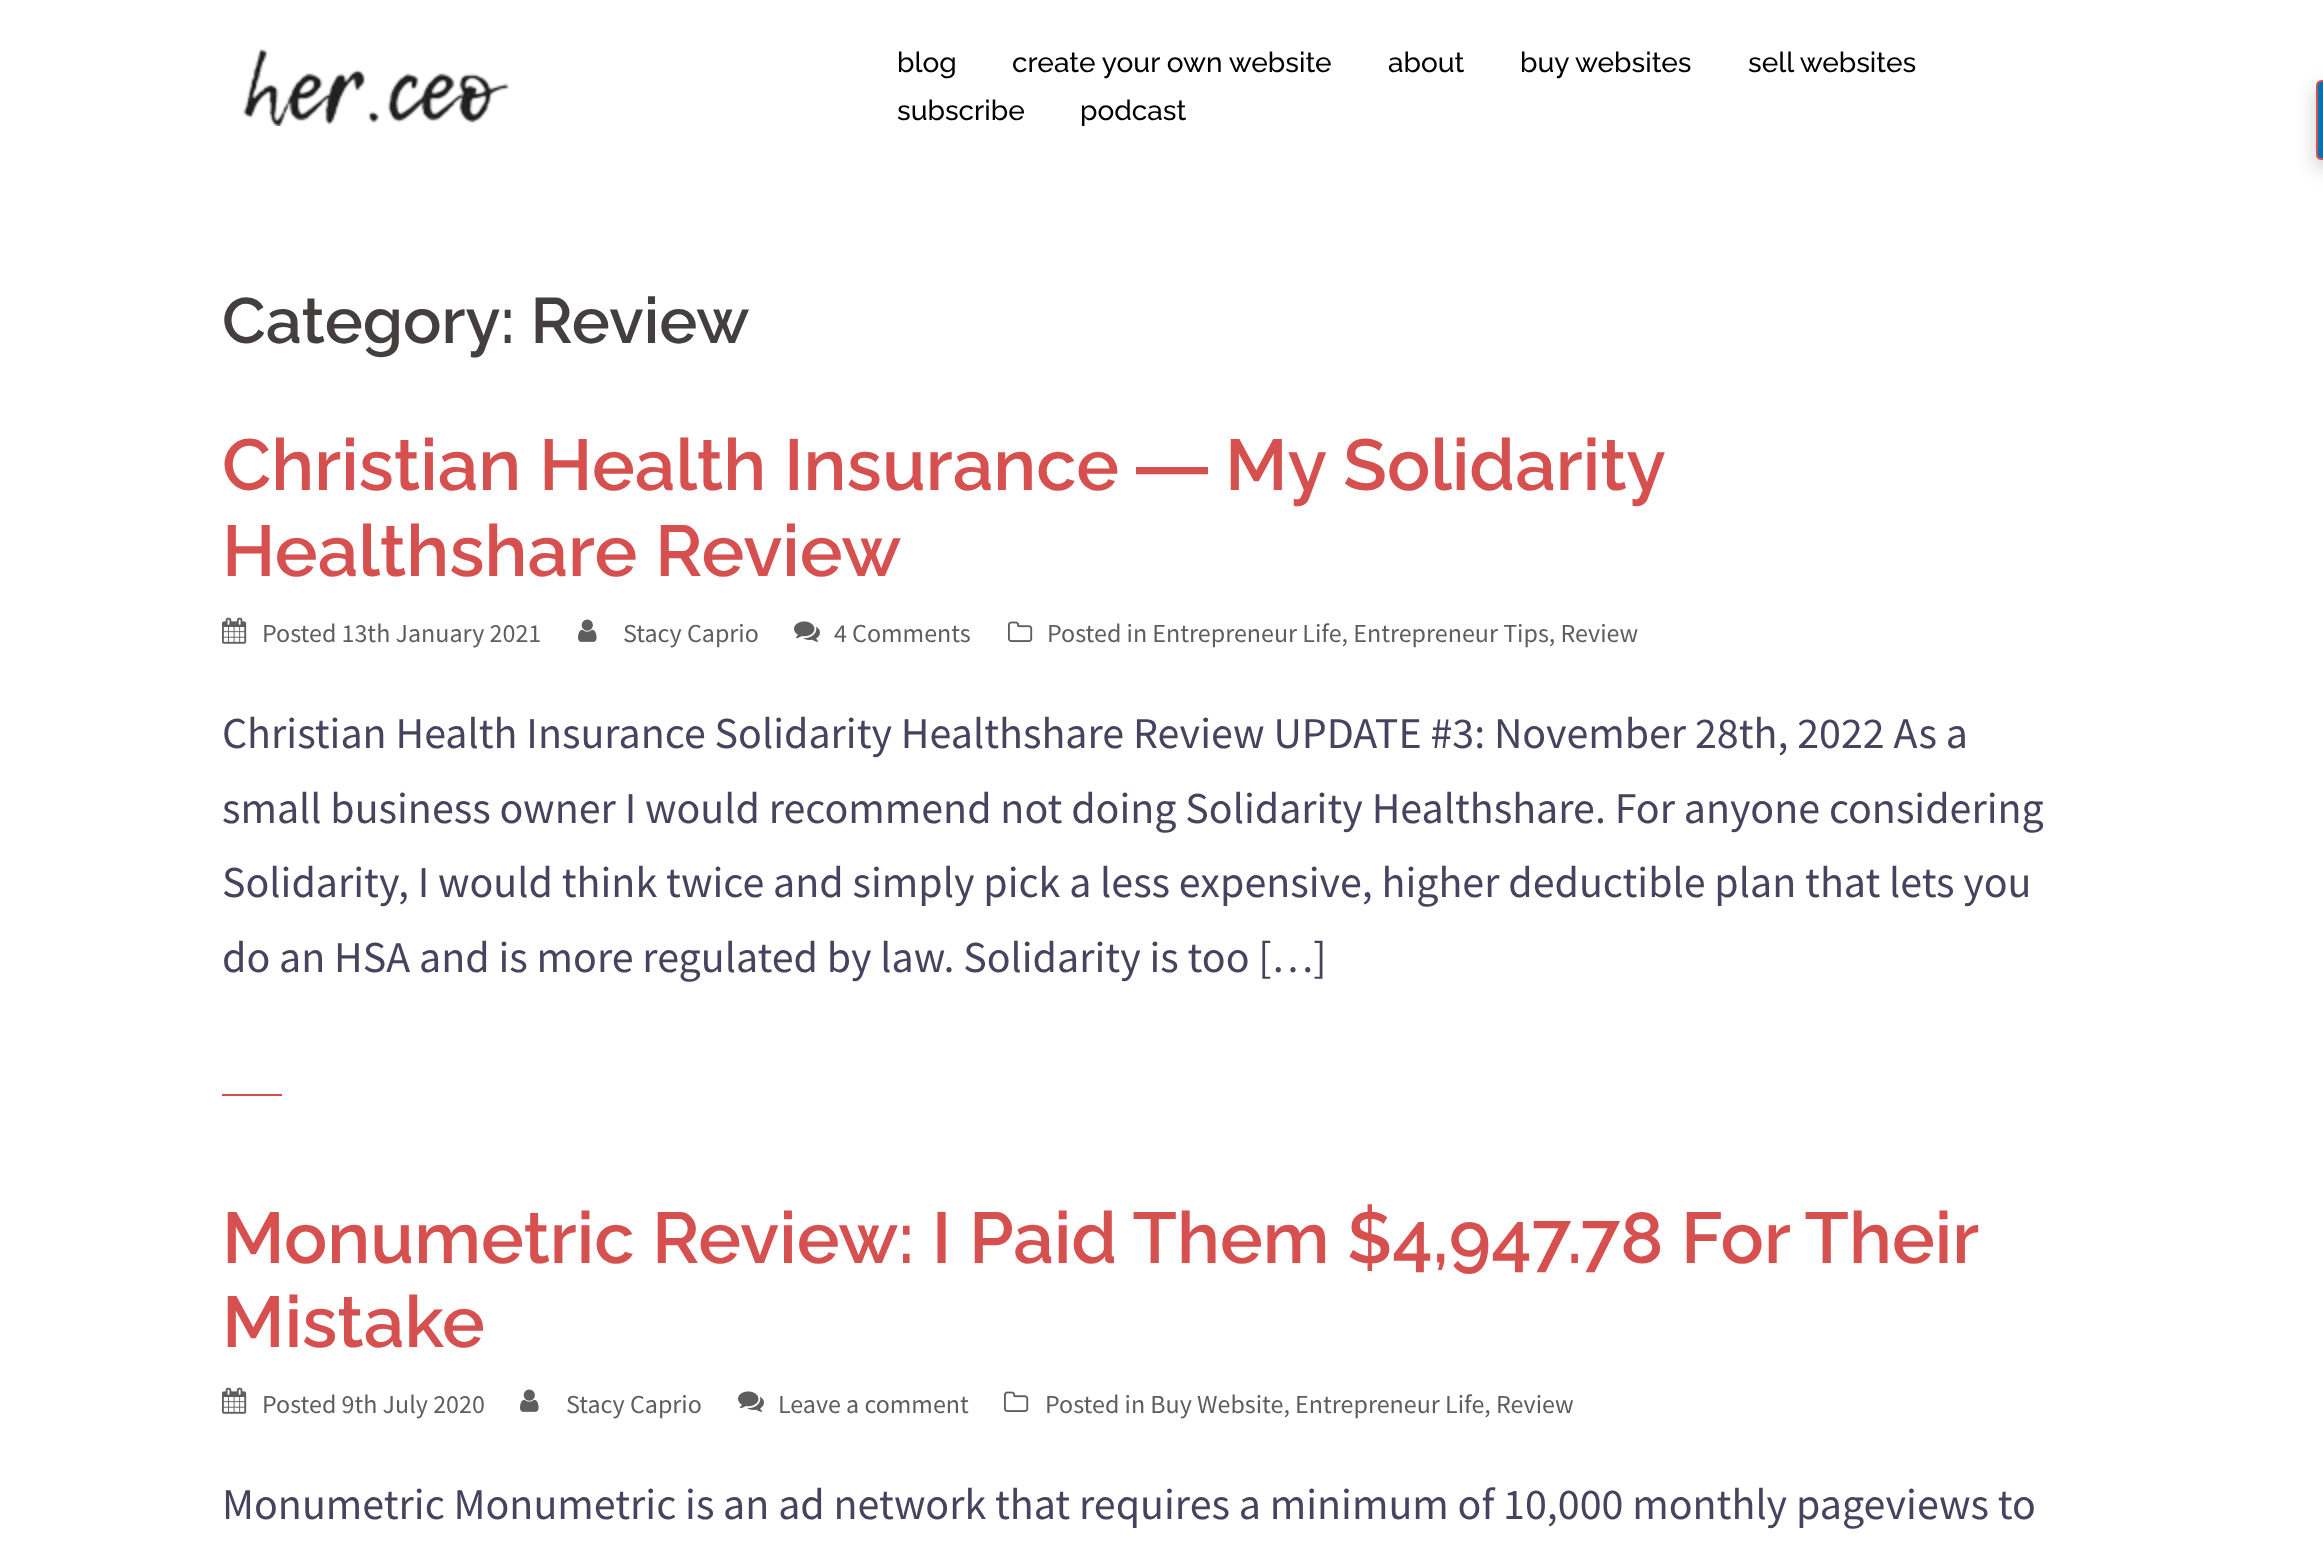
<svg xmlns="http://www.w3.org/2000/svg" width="2323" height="1547">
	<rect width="100%" height="100%" fill="#FFFFFF" />
	<image x="243" y="49" width="266" height="77" href="assets/img1.png" />
	<g font-family="Raleway" font-size="28" font-weight="500" fill="#000000">
		<text x="897" y="72">blog</text>
		<text x="1012" y="72">create your own website</text>
		<text x="1388" y="72">about</text>
		<text x="1520" y="72">buy websites</text>
		<text x="1748" y="72">sell websites</text>
		<text x="897" y="120">subscribe</text>
		<text x="1080" y="120">podcast</text>
	</g>
	<text x="222" y="343" font-family="Raleway" font-size="64" font-weight="600" fill="#443F3F">Category: Review</text>
	<text x="222" y="490" font-family="Raleway" font-size="72" font-weight="600" fill="#D65050">Christian Health Insurance</text>
	<text x="1136" y="490" font-family="Liberation Sans" font-size="72" font-weight="700" fill="#D65050">―</text>
	<g font-family="Raleway" font-size="72" font-weight="600" fill="#D65050">
		<text x="1225" y="490">My Solidarity</text>
		<text x="222" y="576">Healthshare Review</text>
	</g>
	<image x="222" y="617" width="25" height="27" href="assets/img2.png" />
	<text x="262" y="642" font-family="Source Sans Pro" font-size="26" fill="#5E5E5E">Posted 13th January 2021</text>
	<image x="578" y="619" width="19" height="23" href="assets/img3.png" />
	<text x="623" y="642" font-family="Source Sans Pro" font-size="26" fill="#5E5E5E">Stacy Caprio</text>
	<image x="794" y="621" width="26" height="21" href="assets/img4.png" />
	<text x="834" y="642" font-family="Source Sans Pro" font-size="26" fill="#5E5E5E">4 Comments</text>
	<image x="1008" y="621" width="25" height="21" href="assets/img5.png" />
	<text x="1047" y="642" font-family="Source Sans Pro" font-size="26" fill="#5E5E5E">Posted in Entrepreneur Life, Entrepreneur Tips, Review</text>
	<g font-family="Source Sans Pro" font-size="44" fill="#47425D">
		<text x="222" y="748">Christian Health Insurance Solidarity Healthshare Review UPDATE #3: November 28th, 2022 As a</text>
		<text x="222" y="823">small business owner I would recommend not doing Solidarity Healthshare. For anyone considering</text>
		<text x="222" y="897">Solidarity, I would think twice and simply pick a less expensive, higher deductible plan that lets you</text>
		<text x="222" y="972">do an HSA and is more regulated by law. Solidarity is too […]</text>
	</g>
	<rect x="222" y="1094" width="60" height="2" fill="#D65050" />
	<g font-family="Raleway" font-size="72" font-weight="600" fill="#D65050">
		<text x="222" y="1263" word-spacing="-0.25">Monumetric Review: I Paid Them $4,947.78 For Their</text>
		<text x="222" y="1347">Mistake</text>
	</g>
	<image x="222" y="1387" width="25" height="27" href="assets/img2.png" />
	<text x="262" y="1413" font-family="Source Sans Pro" font-size="26" fill="#5E5E5E">Posted 9th July 2020</text>
	<image x="520" y="1389" width="19" height="23" href="assets/img3.png" />
	<text x="566" y="1413" font-family="Source Sans Pro" font-size="26" fill="#5E5E5E">Stacy Caprio</text>
	<image x="738" y="1391" width="26" height="21" href="assets/img4.png" />
	<text x="778" y="1413" font-family="Source Sans Pro" font-size="26" fill="#5E5E5E">Leave a comment</text>
	<image x="1004" y="1391" width="25" height="21" href="assets/img5.png" />
	<text x="1045" y="1413" font-family="Source Sans Pro" font-size="26" fill="#5E5E5E">Posted in Buy Website, Entrepreneur Life, Review</text>
	<text x="222" y="1519" font-family="Source Sans Pro" font-size="44" fill="#47425D">Monumetric Monumetric is an ad network that requires a minimum of 10,000 monthly pageviews to</text>
	<rect x="2316" y="88" width="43" height="80" rx="6" fill="#000000" fill-opacity="0.2" filter="blur(10px)" />
	<path d="M2322 81H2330V159H2322C2319 159 2317 157 2317 154V86C2317 83 2319 81 2322 81Z" fill="#0073B7" stroke="#D65050" stroke-width="2" />
</svg>
